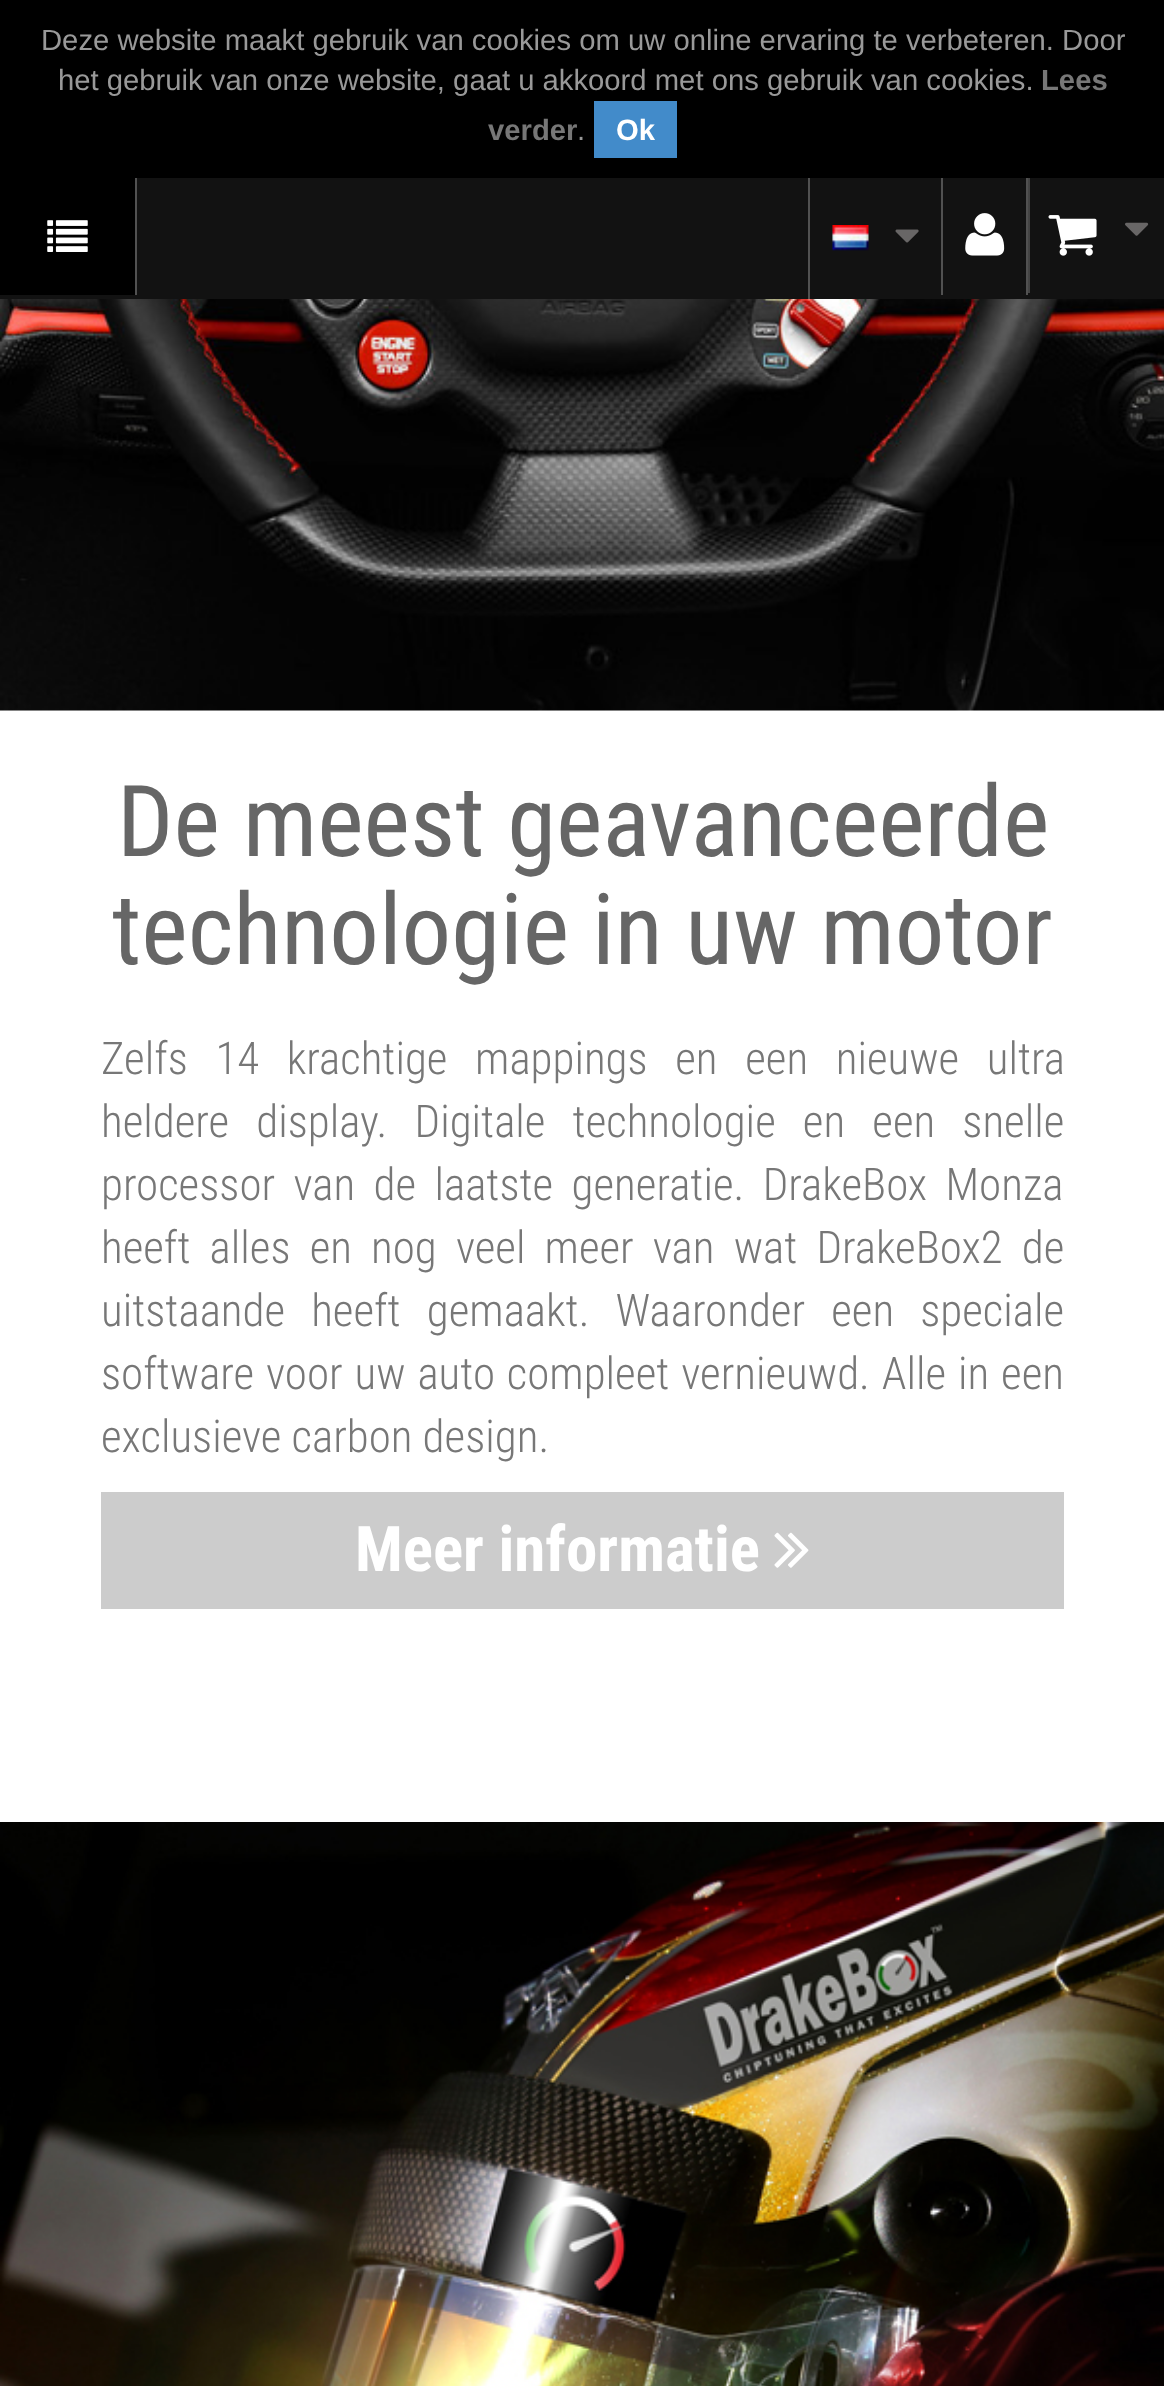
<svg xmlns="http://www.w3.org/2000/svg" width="1164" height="2386">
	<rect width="100%" height="100%" fill="#FFFFFF" />
	<rect x="0" y="178" width="1164" height="121" fill="#121212" />
	<rect x="0" y="0" width="1164" height="178" fill="#000000" />
	<g font-family="Liberation Sans" font-size="29.25" fill="#999999">
		<text x="41" y="50">Deze website maakt gebruik van cookies om uw online ervaring te verbeteren. Door</text>
		<text x="58" y="90">het gebruik van onze website, gaat u akkoord met ons gebruik van cookies.</text>
	</g>
	<g font-family="Liberation Sans" font-size="29.25" font-weight="700" fill="#777777">
		<text x="1041" y="90">Lees</text>
		<text x="488" y="140">verder</text>
	</g>
	<text x="577" y="140" font-family="Liberation Sans" font-size="29.25" fill="#999999">.</text>
	<rect x="594" y="101" width="83" height="57" fill="#428BCA" />
	<text x="616" y="140" font-family="Liberation Sans" font-size="29.25" font-weight="700" fill="#FFFFFF">Ok</text>
	<rect x="0" y="178" width="135" height="117" fill="#000000" />
	<rect x="135" y="178" width="2" height="117" fill="#515151" />
	<image x="47" y="220" width="41" height="32" href="assets/img1.png" />
	<rect x="808" y="178" width="2" height="121" fill="#515151" />
	<image x="832" y="225" width="37" height="26" href="assets/img2.png" />
	<image x="895" y="229" width="24" height="14" href="assets/img3.png" />
	<rect x="1026" y="178" width="2" height="117" fill="#515151" />
	<rect x="941" y="178" width="2" height="117" fill="#515151" />
	<image x="965" y="213" width="40" height="43" href="assets/img4.png" />
	<rect x="1028" y="178" width="2" height="115" fill="#444444" />
	<image x="1048" y="215" width="49" height="41" href="assets/img5.png" />
	<image x="1125" y="222" width="24" height="14" href="assets/img6.png" />
	<image x="0" y="299" width="1164" height="412" href="assets/img7.png" />
	<g font-family="Roboto Condensed" font-size="99" fill="#666666">
		<text x="117" y="856">De meest geavanceerde</text>
		<text x="112" y="964">technologie in uw motor</text>
	</g>
	<g font-family="Roboto Condensed" font-size="45" font-weight="300" fill="#777777">
		<text x="101" y="1074" word-spacing="17.5">Zelfs 14 krachtige mappings en een nieuwe ultra</text>
		<text x="101" y="1137" word-spacing="17">heldere display. Digitale technologie en een snelle</text>
		<text x="101" y="1200" word-spacing="8.25">processor van de laatste generatie. DrakeBox Monza</text>
		<text x="101" y="1263" word-spacing="9">heeft alles en nog veel meer van wat DrakeBox2 de</text>
		<text x="101" y="1326" word-spacing="16">uitstaande heeft gemaakt. Waaronder een speciale</text>
		<text x="101" y="1389" word-spacing="1.75">software voor uw auto compleet vernieuwd. Alle in een</text>
		<text x="101" y="1452">exclusieve carbon design.</text>
	</g>
	<rect x="101" y="1492" width="963" height="117" fill="#CCCCCC" />
	<text x="355" y="1571" font-family="Roboto Condensed" font-size="63" font-weight="700" fill="#FFFFFF">Meer informatie</text>
	<image x="774" y="1532" width="35" height="36" href="assets/img8.png" />
	<image x="0" y="1822" width="1164" height="564" href="assets/img9.png" />
</svg>
